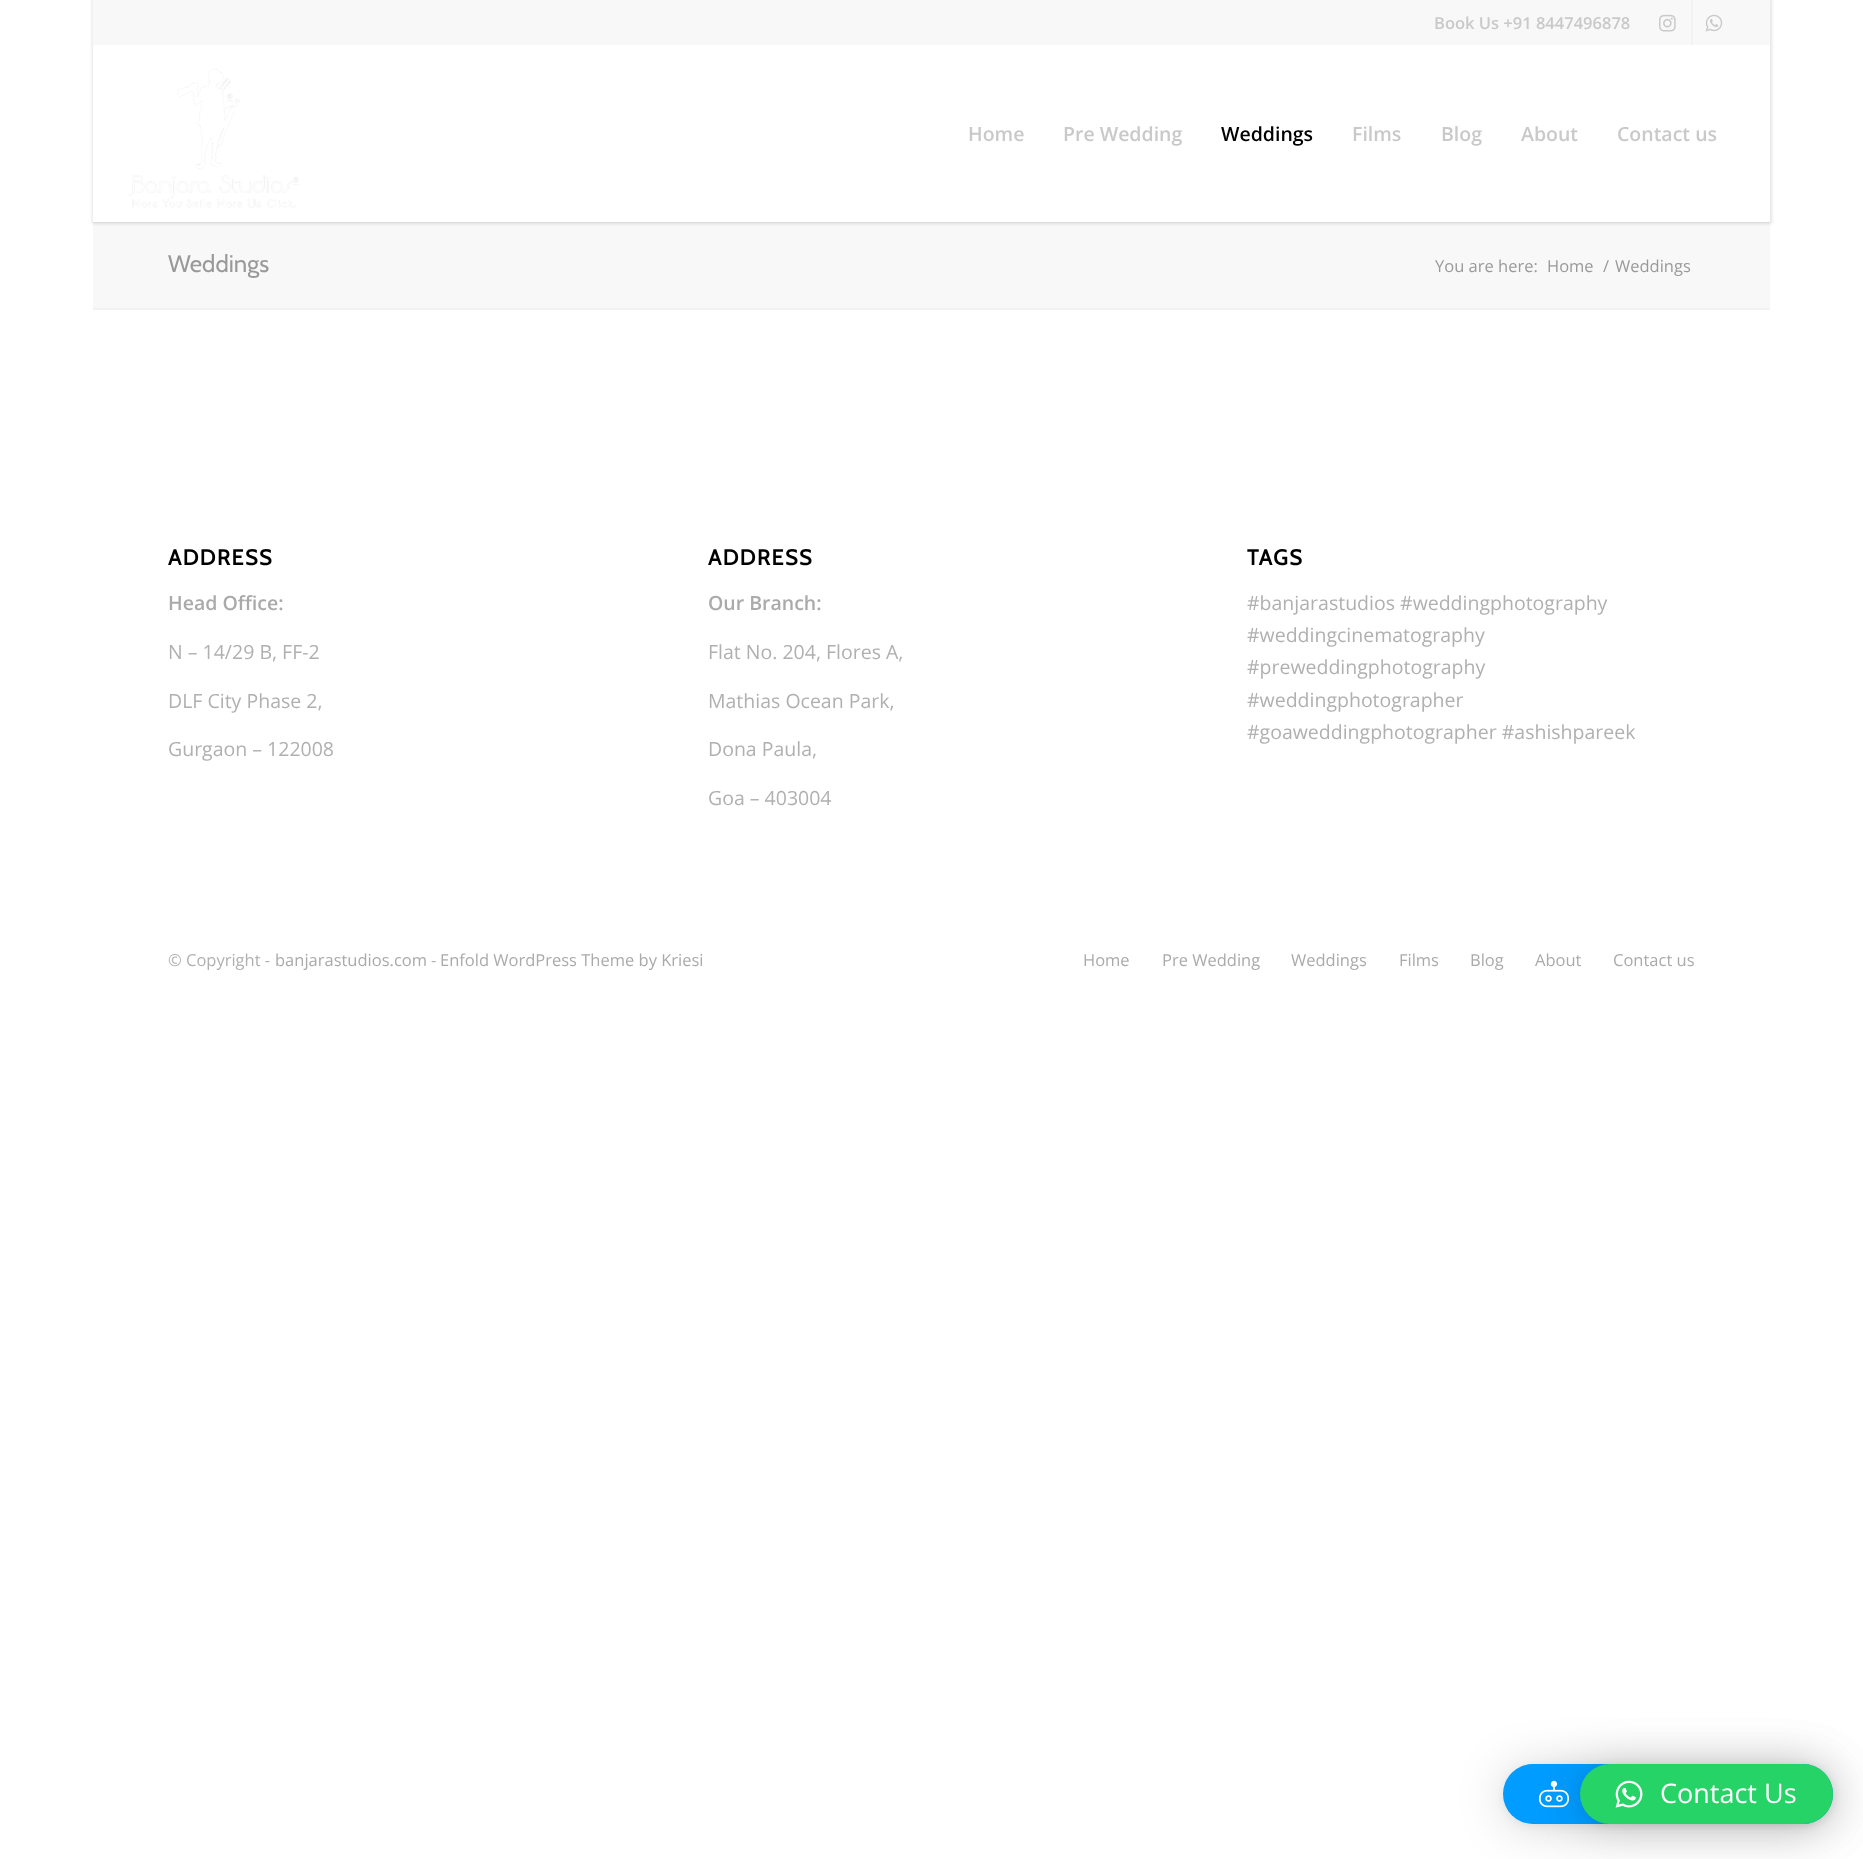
<svg xmlns="http://www.w3.org/2000/svg" width="1863" height="1859">
	<rect width="100%" height="100%" fill="#FFFFFF" />
	<rect x="93" y="223" width="1677" height="85" fill="#F8F8F8" />
	<rect x="93" y="222" width="1677" height="1" fill="#F2F2F2" />
	<rect x="92" y="-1" width="1680" height="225" fill="#000000" fill-opacity="0.1" filter="blur(1.5px)" />
	<rect x="93" y="0" width="1677" height="45" fill="#F8F8F8" />
	<text x="1434" y="29" font-family="Open Sans" font-size="16.5" font-weight="600" fill="#C9C9C9">Book Us +91 8447496878</text>
	<rect x="1691" y="0" width="2" height="45" fill="#F2F2F2" />
	<image x="1659" y="14" width="17" height="18" href="assets/img1.png" />
	<image x="1705" y="14" width="18" height="18" href="assets/img2.png" />
	<rect x="93" y="45" width="1677" height="177" fill="#FFFFFF" />
	<image x="128" y="68" width="171" height="140" href="assets/img3.png" />
	<g font-family="Open Sans" font-size="19.5" font-weight="600" fill="#C9C9C9">
		<text x="968" y="141">Home</text>
		<text x="1063" y="141">Pre Wedding</text>
	</g>
	<text x="1221" y="141" font-family="Open Sans" font-size="19.5" font-weight="600" fill="#000000">Weddings</text>
	<g font-family="Open Sans" font-size="19.5" font-weight="600" fill="#C9C9C9">
		<text x="1352" y="141">Films</text>
		<text x="1441" y="141">Blog</text>
		<text x="1521" y="141">About</text>
		<text x="1617" y="141">Contact us</text>
	</g>
	<text x="168" y="272" font-family="Cabin" font-size="24" fill="#999999">Weddings</text>
	<g font-family="Open Sans" font-size="16.5" fill="#999999">
		<text x="1435" y="272">You are here:</text>
		<text x="1547" y="272">Home</text>
		<text x="1603" y="272">/</text>
		<text x="1615" y="272">Weddings</text>
	</g>
	<rect x="93" y="308" width="1677" height="2" fill="#F2F2F2" />
	<text x="168" y="565" font-family="Cabin" font-size="21.5" font-weight="700" letter-spacing="1.5" fill="#000000">ADDRESS</text>
	<text x="168" y="610" font-family="Open Sans" font-size="19.5" font-weight="600" fill="#AAAAAA">Head Office:</text>
	<g font-family="Open Sans" font-size="19.5" fill="#B0B0B0">
		<text x="168" y="659">N – 14/29 B, FF-2</text>
		<text x="168" y="708">DLF City Phase 2,</text>
		<text x="168" y="756">Gurgaon – 122008</text>
	</g>
	<text x="708" y="565" font-family="Cabin" font-size="21.5" font-weight="700" letter-spacing="1.5" fill="#000000">ADDRESS</text>
	<text x="708" y="610" font-family="Open Sans" font-size="19.5" font-weight="600" fill="#AAAAAA">Our Branch:</text>
	<g font-family="Open Sans" font-size="19.5" fill="#B0B0B0">
		<text x="708" y="659">Flat No. 204, Flores A,</text>
		<text x="708" y="708">Mathias Ocean Park,</text>
		<text x="708" y="756">Dona Paula,</text>
		<text x="708" y="805">Goa – 403004</text>
	</g>
	<text x="1247" y="565" font-family="Cabin" font-size="21.5" font-weight="700" letter-spacing="1.5" fill="#000000">TAGS</text>
	<g font-family="Open Sans" font-size="19.5" fill="#B0B0B0">
		<text x="1247" y="610">#banjarastudios #weddingphotography</text>
		<text x="1247" y="642">#weddingcinematography</text>
		<text x="1247" y="674">#preweddingphotography</text>
		<text x="1247" y="707">#weddingphotographer</text>
		<text x="1247" y="739">#goaweddingphotographer #ashishpareek</text>
	</g>
	<text x="168" y="966" font-family="Open Sans" font-size="16.5" fill="#B0B0B0">© Copyright -</text>
	<text x="275" y="966" font-family="Open Sans" font-size="16.5" fill="#AAAAAA">banjarastudios.com</text>
	<text x="431" y="966" font-family="Open Sans" font-size="16.5" fill="#B0B0B0">-</text>
	<g font-family="Open Sans" font-size="16.5" fill="#AAAAAA">
		<text x="440" y="966">Enfold WordPress Theme by Kriesi</text>
		<text x="1083" y="966">Home</text>
		<text x="1162" y="966">Pre Wedding</text>
		<text x="1291" y="966">Weddings</text>
		<text x="1399" y="966">Films</text>
		<text x="1470" y="966">Blog</text>
		<text x="1535" y="966">About</text>
		<text x="1613" y="966">Contact us</text>
	</g>
	<rect x="1503" y="1767" width="330" height="60" rx="30" fill="#000000" fill-opacity="0.16" filter="blur(24px)" />
	<rect x="1503" y="1766" width="330" height="60" rx="30" fill="#000000" fill-opacity="0.06" filter="blur(4.5px)" />
	<rect x="1503" y="1764" width="330" height="60" rx="30" fill="#009CFF" />
	<image x="1539" y="1780" width="30" height="28" href="assets/img4.png" />
	<rect x="1580" y="1767" width="253" height="60" rx="30" fill="#000000" fill-opacity="0.16" filter="blur(24px)" />
	<rect x="1580" y="1766" width="253" height="60" rx="30" fill="#000000" fill-opacity="0.06" filter="blur(4.5px)" />
	<rect x="1580" y="1764" width="253" height="60" rx="30" fill="#25D366" />
	<image x="1615" y="1780" width="28" height="28" href="assets/img5.png" />
	<text x="1660" y="1803" font-family="Open Sans" font-size="27" fill="#FFFFFF">Contact Us</text>
</svg>
